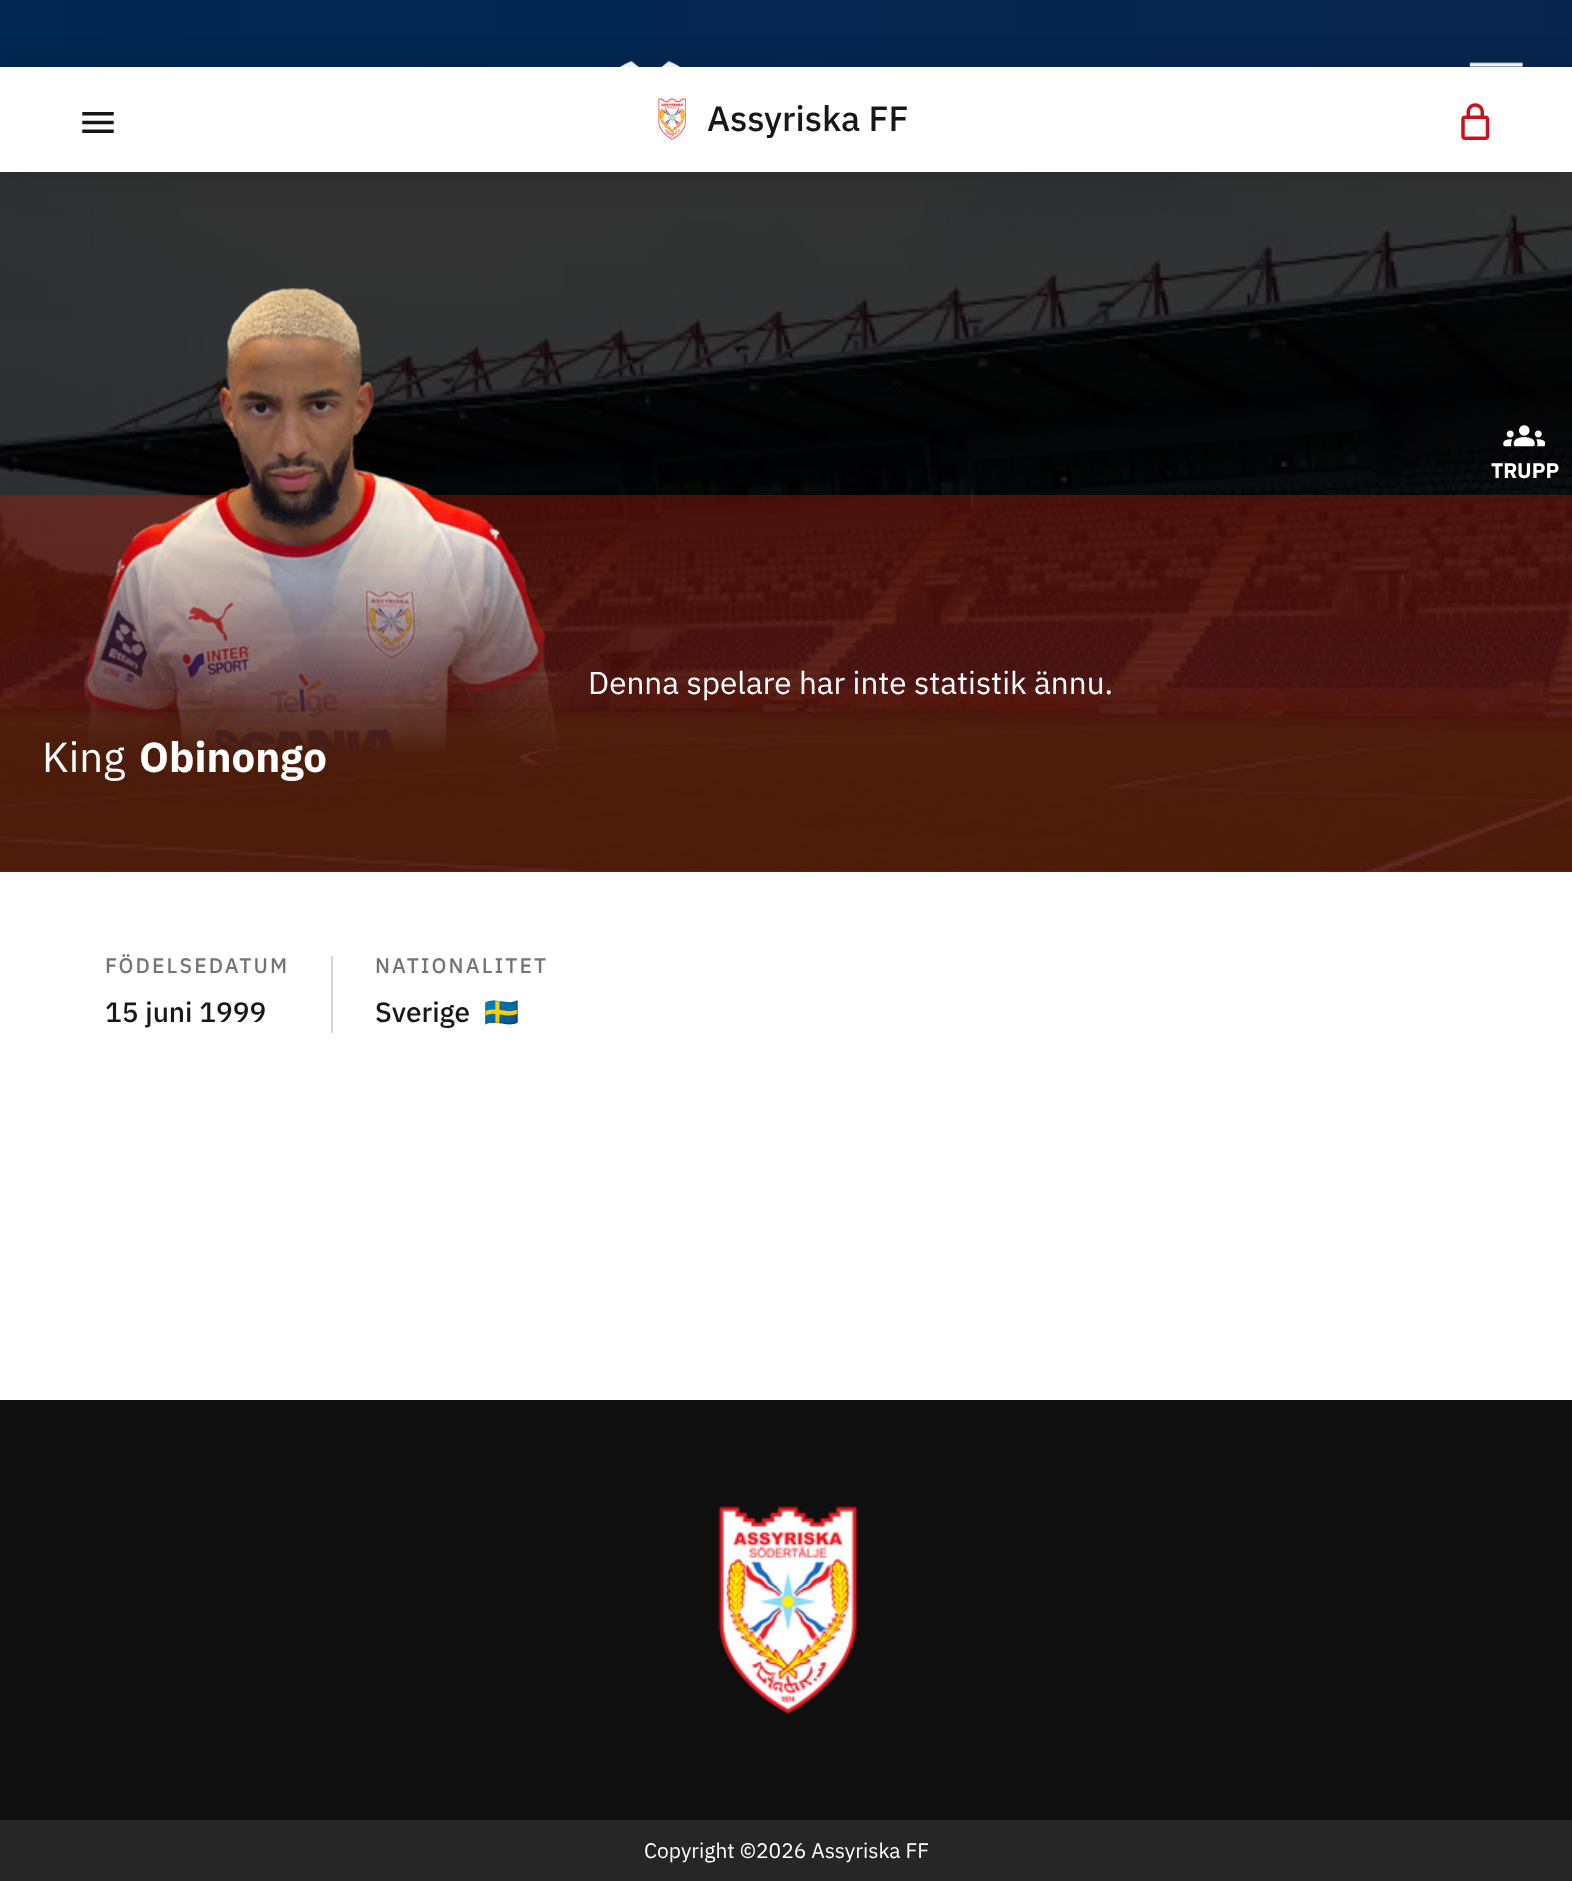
<svg xmlns="http://www.w3.org/2000/svg" width="1572" height="1881">
	<rect width="100%" height="100%" fill="#FFFFFF" />
	<rect x="0" y="871" width="1572" height="1" fill="#333333" />
	<image x="0" y="0" width="1572" height="67" href="assets/img1.png" />
	<image x="0" y="172" width="1572" height="700" href="assets/img5.png" />
	<rect x="0" y="70" width="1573" height="105" fill="#000000" fill-opacity="0.15" filter="blur(17.5px)" />
	<rect x="0" y="67" width="1572" height="105" fill="#FFFFFF" />
	<image x="82" y="112" width="32" height="21" href="assets/img2.png" />
	<image x="658" y="98" width="28" height="42" href="assets/img3.png" />
	<text x="707" y="131" font-family="IBM Plex Sans" font-size="35" font-weight="500" fill="#171717">Assyriska FF</text>
	<image x="1461" y="103" width="29" height="37" href="assets/img4.png" />
	<image x="1503" y="425" width="42" height="22" href="assets/img6.png" />
	<text x="1491" y="478" font-family="IBM Plex Sans" font-size="21" font-weight="700" fill="#FFFFFF">TRUPP</text>
	<rect x="0" y="495" width="1572" height="377" fill="#AB1F0D" fill-opacity="0.4" />
	<text x="588" y="694" font-family="IBM Plex Sans" font-size="31.5" fill="#FFFFFF">Denna spelare har inte statistik ännu.</text>
	<image x="83" y="287" width="475" height="465" href="assets/img7.png" />
	<text x="42" y="772" font-family="IBM Plex Sans" font-size="42" fill="#FFFFFF">King</text>
	<text x="139" y="772" font-family="IBM Plex Sans" font-size="42" font-weight="700" fill="#FFFFFF">Obinongo</text>
	<text x="105" y="973" font-family="IBM Plex Sans" font-size="21" font-weight="500" letter-spacing="2.1" fill="#747474">FÖDELSEDATUM</text>
	<text x="105" y="1022" font-family="IBM Plex Sans" font-size="28" font-weight="500" fill="#171717">15 juni 1999</text>
	<rect x="331" y="956" width="2" height="77" fill="#D5D5D5" />
	<text x="375" y="973" font-family="IBM Plex Sans" font-size="21" font-weight="500" letter-spacing="2.1" fill="#747474">NATIONALITET</text>
	<text x="375" y="1022" font-family="IBM Plex Sans" font-size="28" font-weight="500" fill="#171717">Sverige</text>
	<text x="484" y="1022" font-family="Noto Color Emoji" font-size="28" fill="#171717">🇸🇪</text>
	<rect x="0" y="1400" width="1572" height="420" fill="#0F0F0F" />
	<image x="718" y="1506" width="139" height="208" href="assets/img8.png" />
	<rect x="0" y="1820" width="1572" height="61" fill="#262626" />
	<text x="644" y="1858" font-family="IBM Plex Sans" font-size="21" fill="#FFFFFF">Copyright ©2026 Assyriska FF</text>
</svg>
